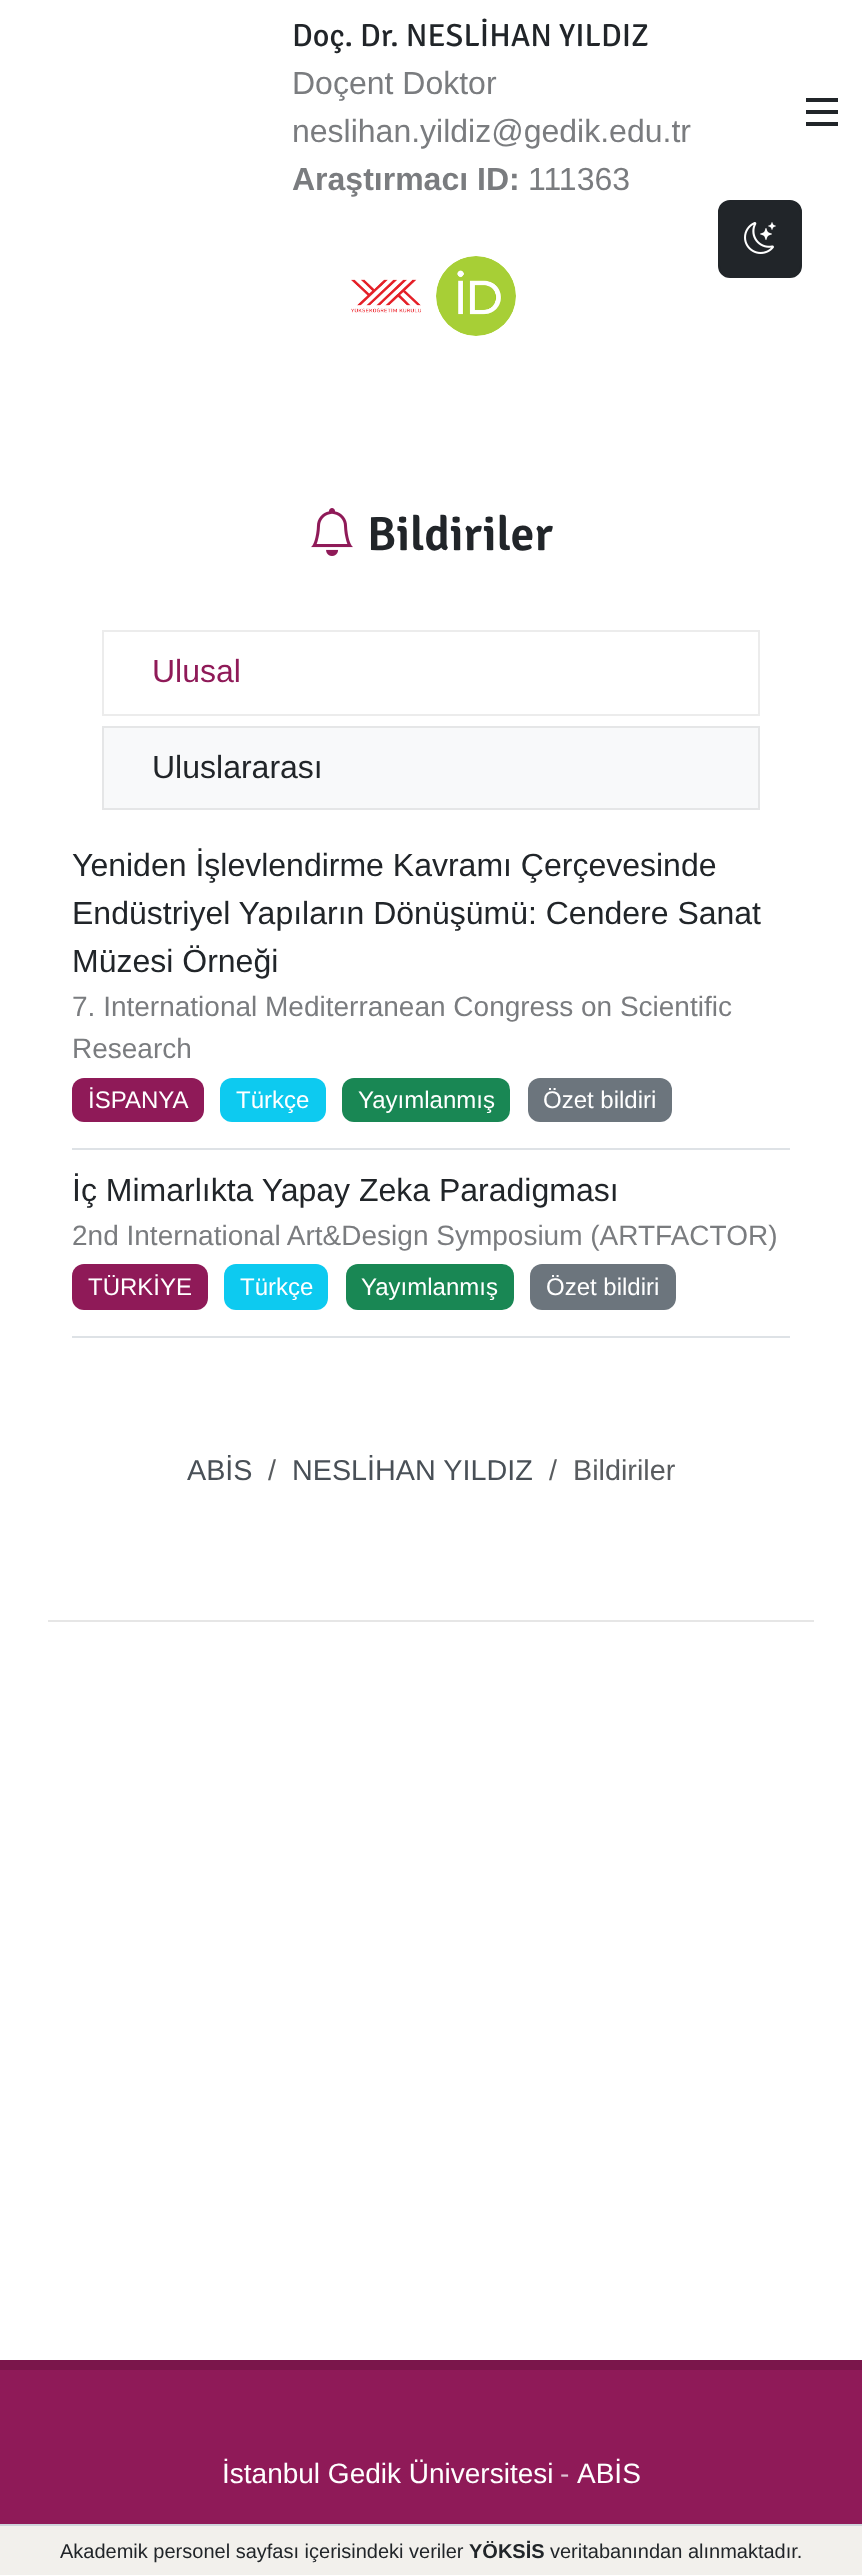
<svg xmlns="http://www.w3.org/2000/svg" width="862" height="2575">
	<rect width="100%" height="100%" fill="#FFFFFF" />
	<text x="292" y="46" font-family="Signika" font-size="32" fill="#212529">Doç. Dr. NESLİHAN YILDIZ</text>
	<g font-family="Liberation Sans" font-size="32" fill="#7A7C7F">
		<text x="292" y="94">Doçent Doktor</text>
		<text x="292" y="142">neslihan.yildiz@gedik.edu.tr</text>
	</g>
	<text x="292" y="190" font-family="Liberation Sans" font-size="32" font-weight="700" fill="#7A7C7F">Araştırmacı ID:</text>
	<text x="528" y="190" font-family="Liberation Sans" font-size="32" fill="#7A7C7F">111363</text>
	<rect x="806" y="110" width="32" height="4" fill="#212529" />
	<rect x="806" y="98" width="32" height="4" fill="#212529" />
	<rect x="806" y="122" width="32" height="4" fill="#212529" />
	<image x="351" y="279" width="70" height="34" href="assets/img1.png" />
	<image x="436" y="256" width="80" height="80" href="assets/img2.png" />
	<rect x="0" y="2526" width="862" height="49" fill="#F2F0EC" />
	<rect x="0" y="2524" width="862" height="2" fill="#CED4DA" />
	<text x="60" y="2558" font-family="Liberation Sans" font-size="20" fill="#212529">Akademik personel sayfası içerisindeki veriler</text>
	<text x="469" y="2558" font-family="Liberation Sans" font-size="20" font-weight="700" fill="#212529">YÖKSİS</text>
	<text x="550" y="2558" font-family="Liberation Sans" font-size="20" fill="#212529">veritabanından alınmaktadır.</text>
	<image x="311" y="508" width="42" height="48" href="assets/img3.png" />
	<text x="367" y="550" font-family="Signika" font-size="48" font-weight="600" fill="#212529">Bildiriler</text>
	<rect x="103" y="631" width="656" height="84" fill="none" stroke="#ECECEC" stroke-width="2" />
	<text x="152" y="682" font-family="Liberation Sans" font-size="32" fill="#8F1A58">Ulusal</text>
	<rect x="103" y="727" width="656" height="82" fill="#F8F9FA" stroke="#E5E6E7" stroke-width="2" />
	<text x="152" y="778" font-family="Liberation Sans" font-size="32" fill="#212529">Uluslararası</text>
	<rect x="72" y="1148" width="718" height="2" fill="#DEE2E6" />
	<g font-family="Liberation Sans" font-size="32" fill="#212529">
		<text x="72" y="876">Yeniden İşlevlendirme Kavramı Çerçevesinde</text>
		<text x="72" y="924">Endüstriyel Yapıların Dönüşümü: Cendere Sanat</text>
		<text x="72" y="972">Müzesi Örneği</text>
	</g>
	<g font-family="Liberation Sans" font-size="28" fill="#7A7C7F">
		<text x="72" y="1016">7. International Mediterranean Congress on Scientific</text>
		<text x="72" y="1058">Research</text>
	</g>
	<rect x="72" y="1078" width="132" height="44" rx="12" fill="#8F1A58" />
	<text x="88" y="1108" font-family="Liberation Sans" font-size="24" fill="#FFFFFF">İSPANYA</text>
	<rect x="220" y="1078" width="106" height="44" rx="12" fill="#0DCAF0" />
	<text x="236" y="1108" font-family="Liberation Sans" font-size="24" fill="#FFFFFF">Türkçe</text>
	<rect x="342" y="1078" width="168" height="44" rx="12" fill="#198754" />
	<text x="358" y="1108" font-family="Liberation Sans" font-size="24" fill="#FFFFFF">Yayımlanmış</text>
	<rect x="528" y="1078" width="144" height="44" rx="12" fill="#6C757D" />
	<text x="543" y="1108" font-family="Liberation Sans" font-size="24" fill="#FFFFFF">Özet bildiri</text>
	<rect x="72" y="1336" width="718" height="2" fill="#DEE2E6" />
	<text x="72" y="1201" font-family="Liberation Sans" font-size="32" fill="#212529">İç Mimarlıkta Yapay Zeka Paradigması</text>
	<text x="72" y="1245" font-family="Liberation Sans" font-size="28" fill="#7A7C7F">2nd International Art&amp;Design Symposium (ARTFACTOR)</text>
	<rect x="72" y="1264" width="136" height="46" rx="12" fill="#8F1A58" />
	<text x="88" y="1295" font-family="Liberation Sans" font-size="24" fill="#FFFFFF">TÜRKİYE</text>
	<rect x="224" y="1264" width="104" height="46" rx="12" fill="#0DCAF0" />
	<text x="240" y="1295" font-family="Liberation Sans" font-size="24" fill="#FFFFFF">Türkçe</text>
	<rect x="346" y="1264" width="168" height="46" rx="12" fill="#198754" />
	<text x="361" y="1295" font-family="Liberation Sans" font-size="24" fill="#FFFFFF">Yayımlanmış</text>
	<rect x="530" y="1264" width="146" height="46" rx="12" fill="#6C757D" />
	<text x="546" y="1295" font-family="Liberation Sans" font-size="24" fill="#FFFFFF">Özet bildiri</text>
	<text x="187" y="1480" font-family="Liberation Sans" font-size="28.75" fill="#495057">ABİS</text>
	<text x="268" y="1480" font-family="Liberation Sans" font-size="28.75" fill="#595C5F">/</text>
	<text x="292" y="1480" font-family="Liberation Sans" font-size="28.75" fill="#495057">NESLİHAN YILDIZ</text>
	<g font-family="Liberation Sans" font-size="28.75" fill="#595C5F">
		<text x="549" y="1480">/</text>
		<text x="573" y="1480">Bildiriler</text>
	</g>
	<rect x="48" y="1620" width="766" height="2" fill="#E6E6E6" />
	<rect x="0" y="2370" width="862" height="154" fill="#8F1A58" />
	<rect x="0" y="2360" width="862" height="10" fill="#7A164B" />
	<text x="222" y="2483" font-family="Liberation Sans" font-size="28" fill="#FFFFFF">İstanbul Gedik Üniversitesi</text>
	<text x="560" y="2483" font-family="Liberation Sans" font-size="28" fill="#DEC1D2">-</text>
	<text x="577" y="2483" font-family="Liberation Sans" font-size="28" fill="#FFFFFF">ABİS</text>
	<rect x="719" y="201" width="82" height="76" rx="11" fill="#212529" stroke="#212529" stroke-width="2" />
	<image x="744" y="222" width="32" height="32" href="assets/img4.png" />
</svg>
